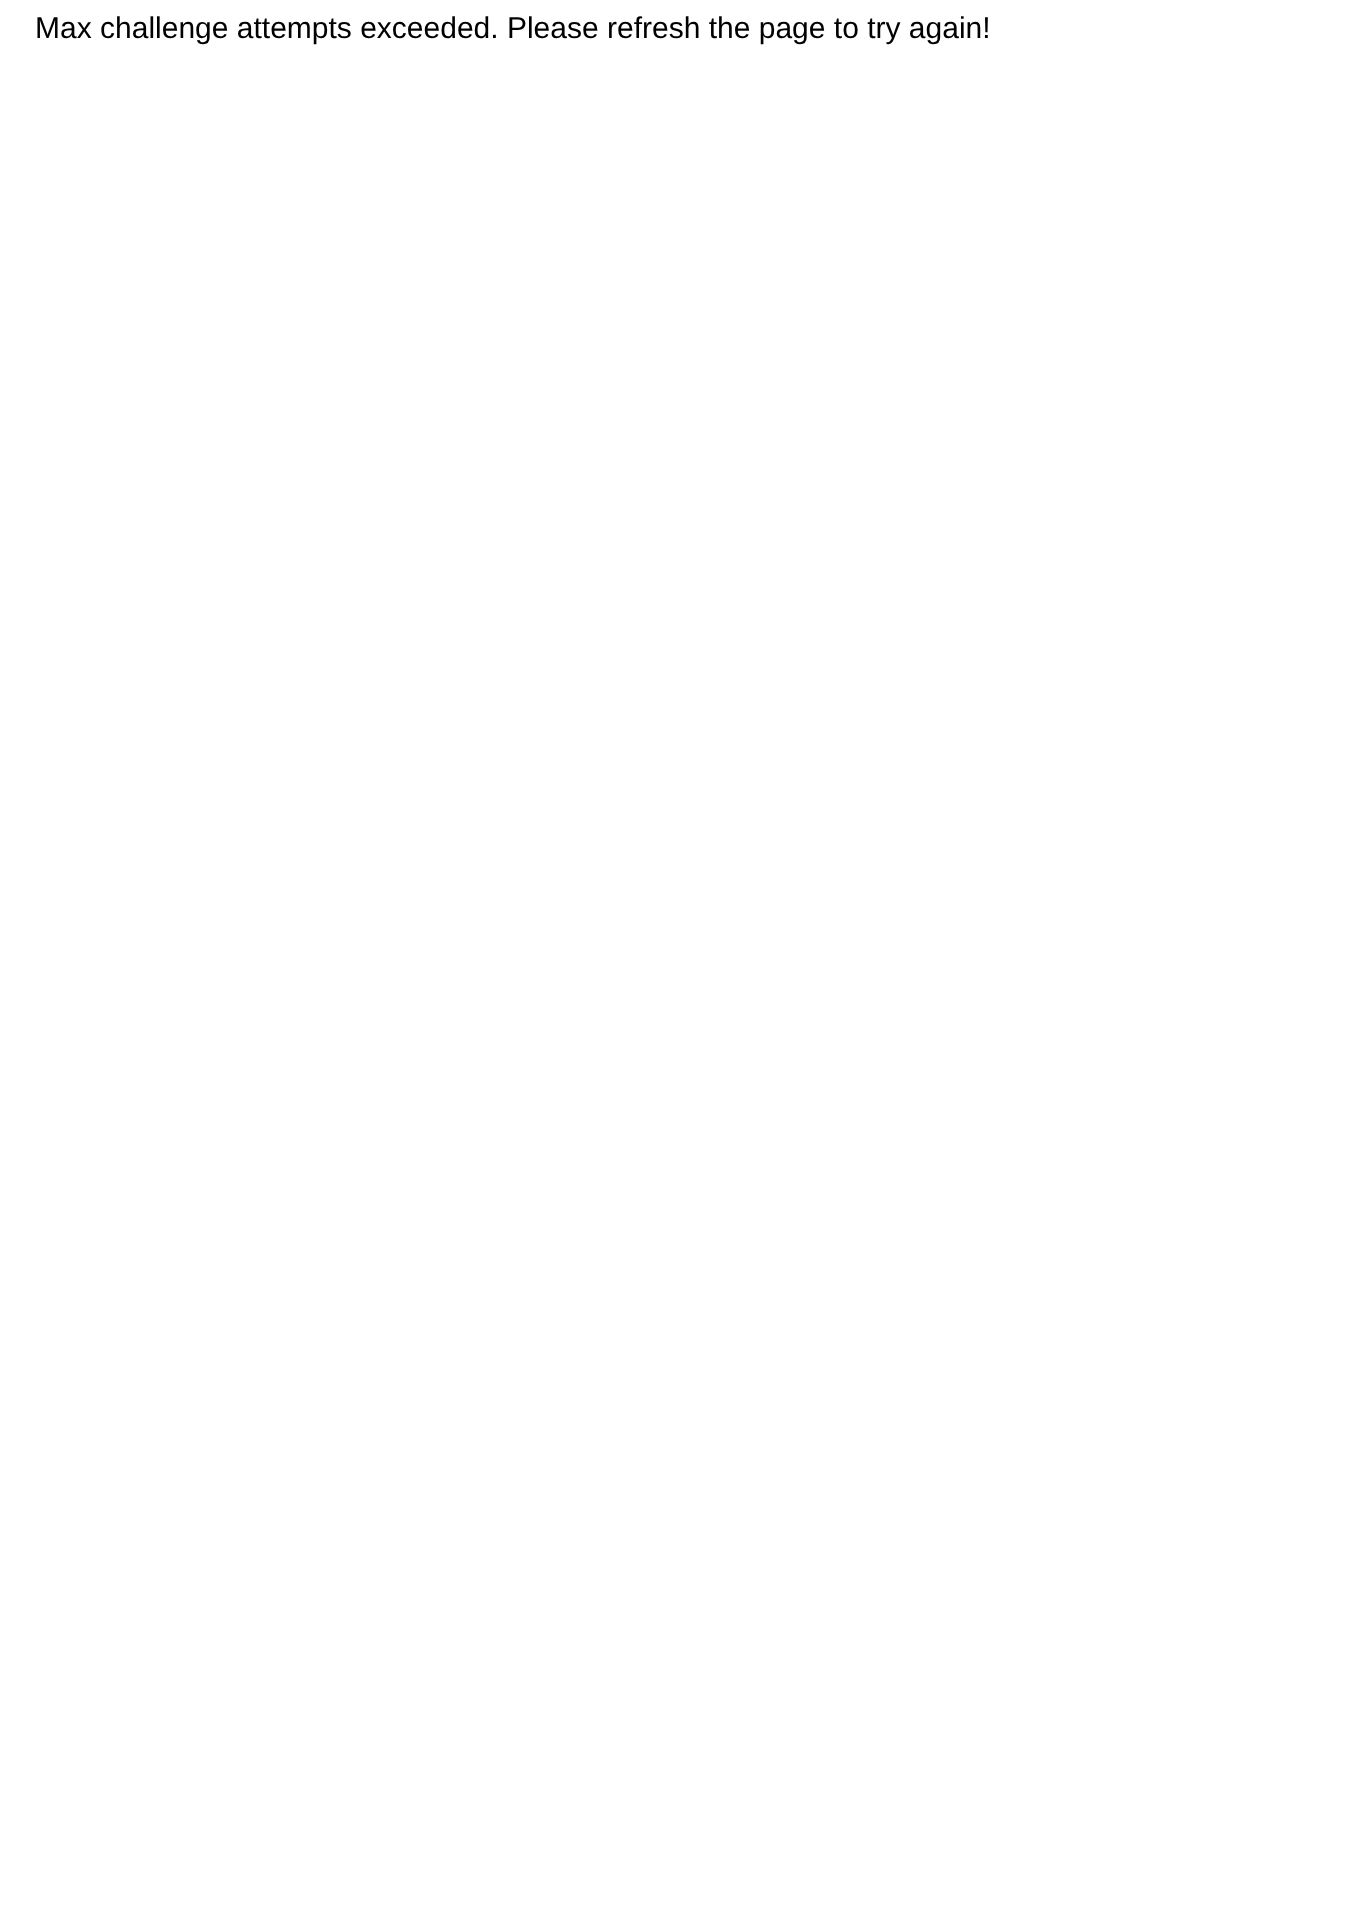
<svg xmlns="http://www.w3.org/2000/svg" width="1372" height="1911">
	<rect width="100%" height="100%" fill="#FFFFFF" />
	<text x="35" y="38" font-family="Liberation Sans" font-size="30" fill="#000000">Max challenge attempts exceeded. Please refresh the page to try again!</text>
</svg>
